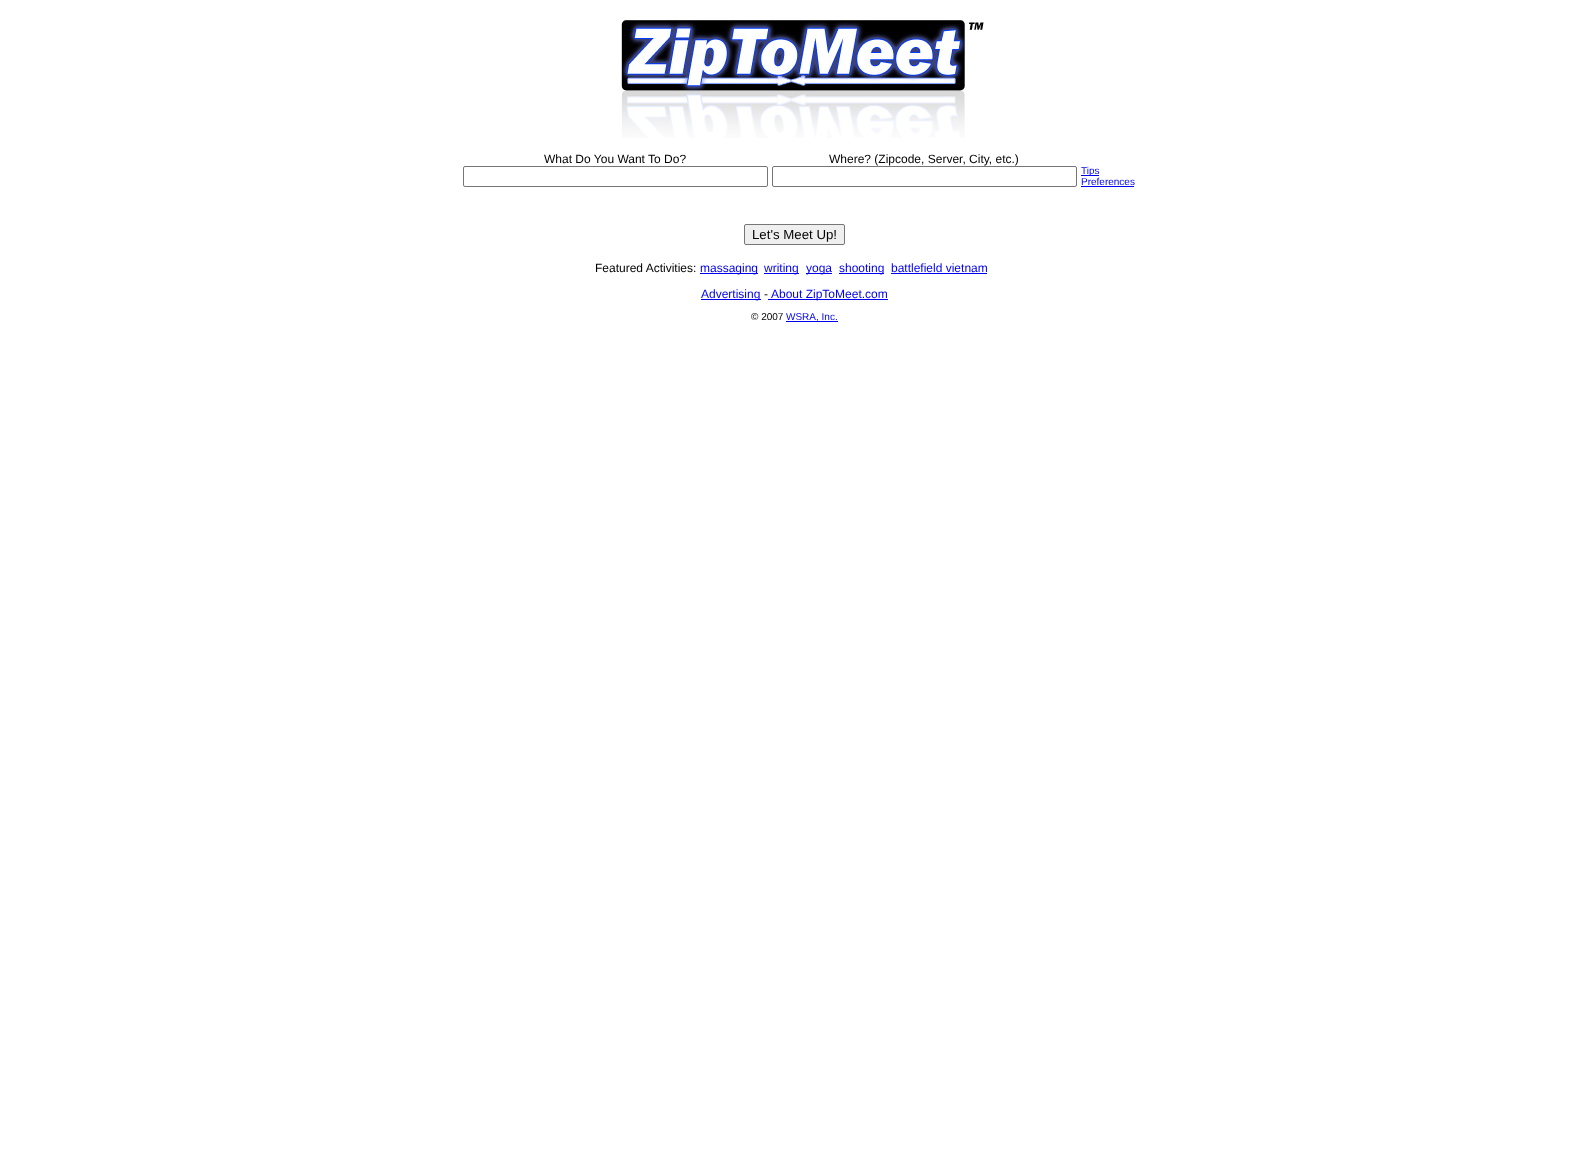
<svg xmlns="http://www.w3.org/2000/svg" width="1589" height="1166">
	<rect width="100%" height="100%" fill="#FFFFFF" />
	<image x="619" y="16" width="366" height="122" href="assets/img1.png" />
	<text x="544" y="163" font-family="Liberation Sans" font-size="12" fill="#000000">What Do You Want To Do?</text>
	<rect x="463.5" y="166.5" width="304" height="20" rx="1.5" fill="none" stroke="#767676" />
	<text x="829" y="163" font-family="Liberation Sans" font-size="12" fill="#000000">Where? (Zipcode, Server, City, etc.)</text>
	<rect x="772.5" y="166.5" width="304" height="20" rx="1.5" fill="none" stroke="#767676" />
	<rect x="1081" y="175" width="18" height="1" fill="#0000EE" />
	<g font-family="Liberation Sans" font-size="10" fill="#0000EE">
		<text x="1081" y="174">Tips</text>
		<text x="1081" y="185">Preferences</text>
	</g>
	<rect x="1081" y="186" width="53" height="1" fill="#0000EE" />
	<rect x="744.5" y="224.5" width="100" height="20" rx="1.5" fill="#EFEFEF" stroke="#767676" />
	<text x="752" y="239" font-family="Liberation Sans" font-size="13.25" fill="#000000">Let's Meet Up!</text>
	<text x="595" y="272" font-family="Liberation Sans" font-size="12" fill="#000000">Featured Activities:</text>
	<rect x="700" y="273" width="58" height="1" fill="#0000EE" />
	<text x="700" y="272" font-family="Liberation Sans" font-size="12" fill="#0000EE">massaging</text>
	<rect x="764" y="273" width="35" height="1" fill="#0000EE" />
	<text x="764" y="272" font-family="Liberation Sans" font-size="12" fill="#0000EE">writing</text>
	<rect x="806" y="273" width="26" height="1" fill="#0000EE" />
	<text x="806" y="272" font-family="Liberation Sans" font-size="12" fill="#0000EE">yoga</text>
	<rect x="839" y="273" width="45" height="1" fill="#0000EE" />
	<g font-family="Liberation Sans" font-size="12" fill="#0000EE">
		<text x="839" y="272">shooting</text>
		<text x="891" y="272">battlefield vietnam</text>
	</g>
	<rect x="891" y="273" width="96" height="1" fill="#0000EE" />
	<rect x="701" y="299" width="60" height="1" fill="#0000EE" />
	<text x="701" y="298" font-family="Liberation Sans" font-size="12" fill="#0000EE">Advertising</text>
	<text x="764" y="298" font-family="Liberation Sans" font-size="12" fill="#000000">-</text>
	<rect x="768" y="299" width="120" height="1" fill="#0000EE" />
	<text x="771" y="298" font-family="Liberation Sans" font-size="12" fill="#0000EE">About ZipToMeet.com</text>
	<text x="751" y="320" font-family="Liberation Sans" font-size="10" fill="#000000">© 2007</text>
	<rect x="786" y="321" width="52" height="1" fill="#0000EE" />
	<text x="786" y="320" font-family="Liberation Sans" font-size="10" fill="#0000EE">WSRA, Inc.</text>
</svg>
